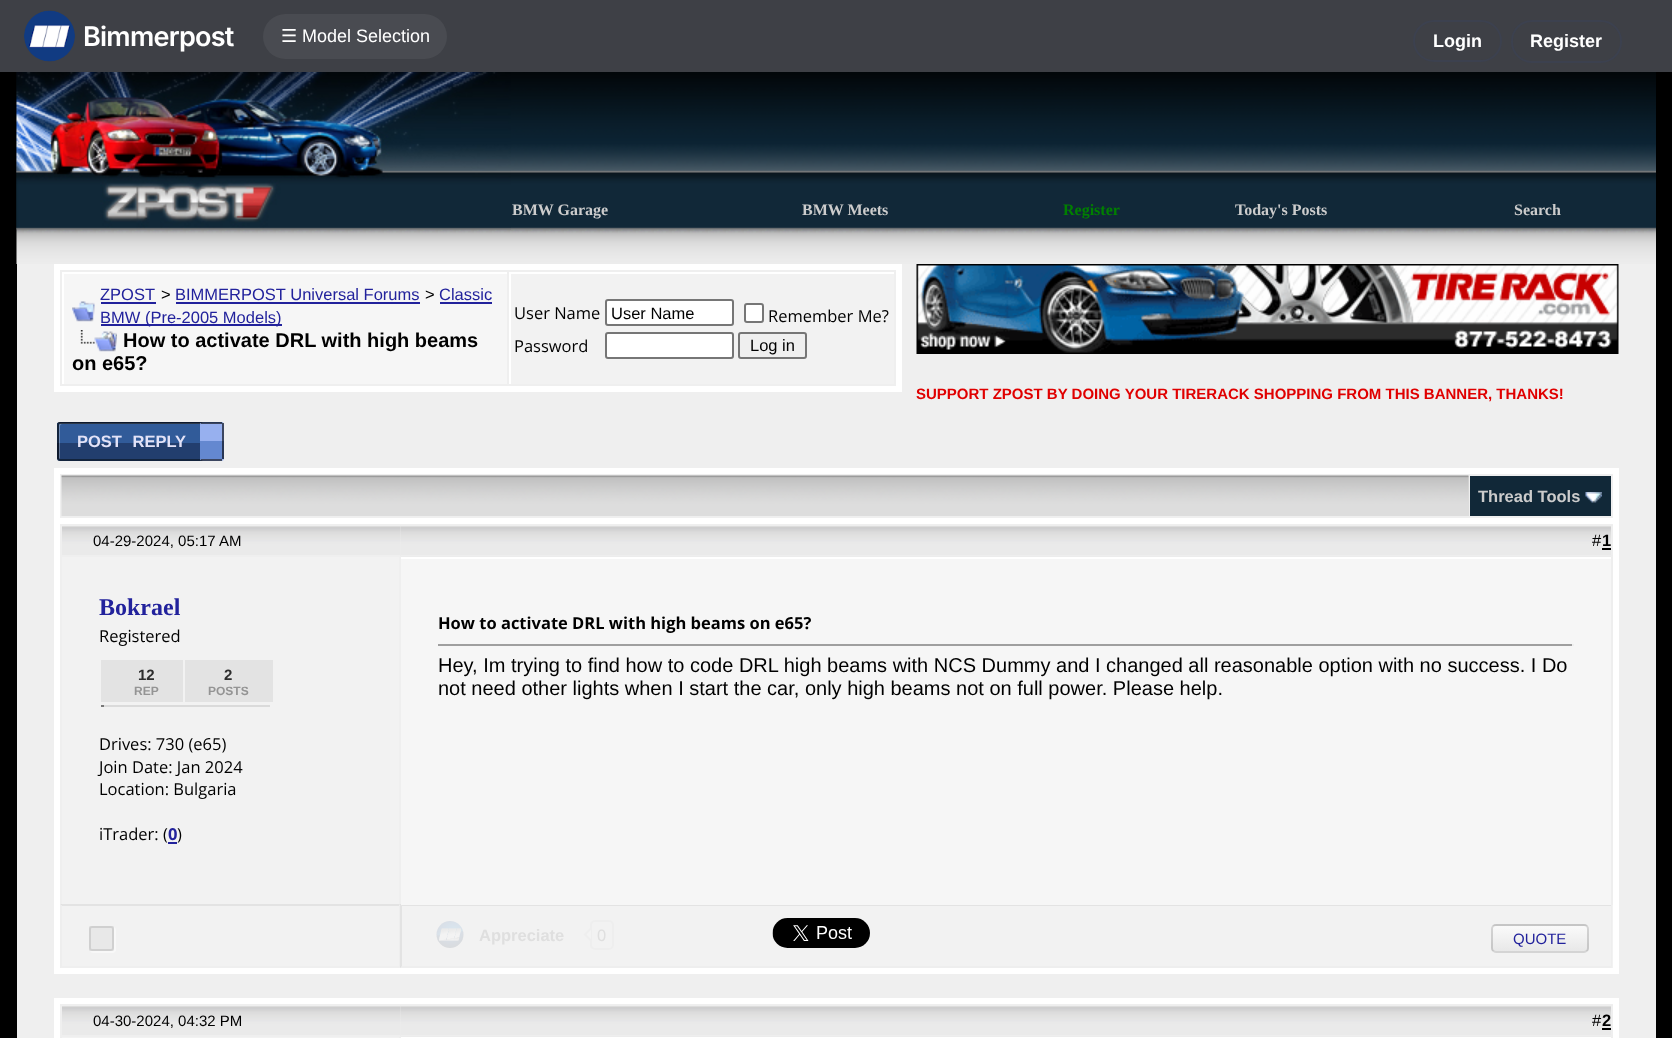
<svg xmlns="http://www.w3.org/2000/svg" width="1672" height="1038">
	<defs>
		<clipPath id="clip1"><rect x="57" y="422" width="149" height="39" rx="3" /></clipPath>
		<clipPath id="clip2"><rect x="200" y="422" width="24" height="39" rx="3" /></clipPath>
		<clipPath id="clip3"><rect x="1491" y="924" width="98" height="29" rx="5" /></clipPath>
		<linearGradient id="g1" gradientUnits="userSpaceOnUse" x1="1540" y1="900" x2="1540" y2="926"><stop offset="0" stop-color="#FAFAFA" /><stop offset="1" stop-color="#E8E8E8" /></linearGradient>
		<linearGradient id="g2" gradientUnits="userSpaceOnUse" x1="1540" y1="926" x2="1540" y2="951"><stop offset="0" stop-color="#FAFAFA" /><stop offset="1" stop-color="#E8E8E8" /></linearGradient>
		<linearGradient id="g3" gradientUnits="userSpaceOnUse" x1="1540" y1="951" x2="1540" y2="977"><stop offset="0" stop-color="#FAFAFA" /><stop offset="1" stop-color="#E8E8E8" /></linearGradient>
	</defs>
	<rect width="100%" height="100%" fill="#000000" />
	<rect x="0" y="0" width="1672" height="72" fill="#3E4046" />
	<image x="24" y="10" width="51" height="52" href="assets/img1.png" />
	<text x="83" y="46" font-family="Inter" font-size="27" font-weight="600" letter-spacing="-0.75" fill="#FFFFFF">Bimmerpost</text>
	<rect x="263" y="14" width="184" height="45" rx="22.5" fill="#494B51" />
	<text x="281" y="42" font-family="DejaVu Sans" font-size="18" fill="#FFFFFF">☰</text>
	<text x="302" y="42" font-family="Liberation Sans" font-size="18" fill="#FFFFFF">Model Selection</text>
	<rect x="1414" y="21" width="87" height="40" rx="20" fill="none" stroke="#3C414F" stroke-width="2" />
	<text x="1433" y="47" font-family="Liberation Sans" font-size="18" font-weight="700" fill="#FFFFFF">Login</text>
	<rect x="1512" y="21" width="109" height="41" rx="20" fill="none" stroke="#3C414F" stroke-width="2" />
	<text x="1530" y="47" font-family="Liberation Sans" font-size="18" font-weight="700" fill="#FFFFFF">Register</text>
	<image x="16" y="72" width="1640" height="192" href="assets/img2.png" />
	<image x="16" y="72" width="495" height="158" href="assets/img3.png" />
	<g font-family="Liberation Serif" font-size="16" font-weight="700" fill="#CCCCCC">
		<text x="512" y="215">BMW Garage</text>
		<text x="802" y="215">BMW Meets</text>
	</g>
	<text x="1063" y="215" font-family="Liberation Serif" font-size="16" font-weight="700" fill="#008000">Register</text>
	<g font-family="Liberation Serif" font-size="16" font-weight="700" fill="#CCCCCC">
		<text x="1235" y="215">Today's Posts</text>
		<text x="1514" y="215">Search</text>
	</g>
	<rect x="17" y="264" width="1639" height="774" fill="#EFEFEF" />
	<rect x="57" y="267" width="842" height="122" fill="none" stroke="#FFFFFF" stroke-width="6" />
	<rect x="64" y="274" width="443" height="110" fill="#F6F6F6" />
	<rect x="62" y="272" width="445" height="2" fill="#FFFFFF" />
	<rect x="62" y="272" width="2" height="112" fill="#FFFFFF" />
	<image x="72" y="301" width="23" height="21" href="assets/img4.png" />
	<text x="100" y="300" font-family="Liberation Sans" font-size="16.5" fill="#22229C">ZPOST</text>
	<rect x="101" y="302" width="55" height="2" fill="#22229C" />
	<text x="161" y="300" font-family="Liberation Sans" font-size="16.5" fill="#000000">&gt;</text>
	<text x="175" y="300" font-family="Liberation Sans" font-size="16.5" fill="#22229C">BIMMERPOST Universal Forums</text>
	<rect x="176" y="302" width="244" height="2" fill="#22229C" />
	<text x="425" y="300" font-family="Liberation Sans" font-size="16.5" fill="#000000">&gt;</text>
	<text x="439" y="300" font-family="Liberation Sans" font-size="16.5" fill="#22229C">Classic</text>
	<rect x="440" y="302" width="52" height="2" fill="#22229C" />
	<rect x="101" y="324" width="181" height="2" fill="#22229C" />
	<text x="100" y="323" font-family="Liberation Sans" font-size="16.5" fill="#22229C">BMW (Pre-2005 Models)</text>
	<image x="80" y="330" width="37" height="22" href="assets/img5.png" />
	<g font-family="Liberation Sans" font-size="20" font-weight="700" fill="#000000">
		<text x="123" y="347">How to activate DRL with high beams</text>
		<text x="72" y="370">on e65?</text>
	</g>
	<rect x="511" y="274" width="383" height="110" fill="#F2F2F2" />
	<rect x="509" y="272" width="385" height="2" fill="#FFFFFF" />
	<rect x="509" y="272" width="2" height="112" fill="#FFFFFF" />
	<text x="514" y="319" font-family="Open Sans" font-size="16.5" fill="#000000">User Name</text>
	<rect x="606" y="300" width="127" height="25" rx="2" fill="#FFFFFF" stroke="#767676" stroke-width="2" />
	<text x="611" y="319" font-family="Liberation Sans" font-size="16.5" fill="#000000">User Name</text>
	<rect x="745" y="304" width="18" height="18" rx="2" fill="#FFFFFF" stroke="#767676" stroke-width="2" />
	<g font-family="Open Sans" font-size="16.5" fill="#000000">
		<text x="768" y="322">Remember Me?</text>
		<text x="514" y="352">Password</text>
	</g>
	<rect x="606" y="333" width="127" height="25" rx="2" fill="#FFFFFF" stroke="#767676" stroke-width="2" />
	<rect x="739" y="333" width="67" height="25" rx="2" fill="#EFEFEF" stroke="#767676" stroke-width="2" />
	<text x="750" y="351" font-family="Liberation Sans" font-size="16.5" fill="#000000">Log in</text>
	<image x="916" y="264" width="703" height="90" href="assets/img6.png" />
	<text x="916" y="399" font-family="Liberation Sans" font-size="15" font-weight="700" fill="#E00000">SUPPORT ZPOST BY DOING YOUR TIRERACK SHOPPING FROM THIS BANNER, THANKS!</text>
	<g clip-path="url(#clip1)">
		<rect x="57" y="422" width="149" height="1" fill="#223E6E" />
	</g>
	<rect x="57" y="423" width="144" height="20" fill="#315B99" />
	<rect x="57" y="443" width="144" height="16" fill="#223E6E" />
	<g clip-path="url(#clip1)">
		<rect x="57" y="459" width="149" height="2" fill="#315B99" />
	</g>
	<path d="M62 424H204C204 423 203 423 202 423H60C60 423 59 424 59 424V458C59 458 59 459 60 459V426C60 425 61 424 62 424Z" fill="#FFFFFF" fill-opacity="0.3" />
	<rect x="58" y="423" width="147" height="37" rx="2" fill="none" stroke="#000000" stroke-opacity="0.6" stroke-width="2" />
	<text x="77" y="447" word-spacing="6" font-family="Liberation Sans" font-size="16.5" font-weight="700" fill="#E2E2F7">POST REPLY</text>
	<g clip-path="url(#clip2)">
		<rect x="200" y="422" width="24" height="1" fill="#6488D0" />
		<rect x="200" y="423" width="24" height="18" fill="#97B0EF" />
	</g>
	<rect x="200" y="441" width="24" height="18" fill="#6488D0" />
	<g clip-path="url(#clip2)">
		<rect x="200" y="459" width="24" height="2" fill="#97B0EF" />
	</g>
	<rect x="201" y="422" width="21" height="2" fill="#000000" fill-opacity="0.6" />
	<rect x="222" y="423" width="2" height="36" fill="#000000" fill-opacity="0.6" />
	<rect x="201" y="459" width="21" height="2" fill="#000000" fill-opacity="0.6" />
	<rect x="54" y="468" width="1565" height="6" fill="#FFFFFF" />
	<rect x="1613" y="468" width="6" height="50" fill="#FFFFFF" />
	<rect x="54" y="468" width="6" height="50" fill="#FFFFFF" />
	<rect x="1468" y="476" width="1" height="40" fill="#DDDDDD" />
	<image x="61" y="475" width="1408" height="41" href="assets/img7.png" />
	<rect x="1470" y="476" width="141" height="40" fill="#112838" />
	<text x="1478" y="502" font-family="Liberation Sans" font-size="16.5" font-weight="700" fill="#CCCCCC">Thread Tools</text>
	<image x="1585" y="492" width="17" height="11" href="assets/img8.png" />
	<rect x="57" y="521" width="1559" height="450" fill="none" stroke="#FFFFFF" stroke-width="6" />
	<image x="62" y="526" width="339" height="29" href="assets/img9.png" />
	<text x="93" y="546" font-family="Liberation Sans" font-size="15" fill="#000000">04-29-2024, 05:17 AM</text>
	<image x="400" y="525" width="1211" height="32" href="assets/img10.png" />
	<rect x="401" y="525" width="1212" height="1" fill="#EEEEEE" />
	<rect x="401" y="555" width="1212" height="1" fill="#EEEEEE" />
	<text x="1592" y="546" font-family="Liberation Sans" font-size="16.5" fill="#000000">#</text>
	<text x="1602" y="546" font-family="Liberation Sans" font-size="16.5" font-weight="700" fill="#000000">1</text>
	<rect x="1602" y="548" width="9" height="2" fill="#000000" />
	<rect x="62" y="557" width="337" height="348" fill="#F2F2F2" />
	<text x="99" y="615" font-family="Liberation Serif" font-size="24" font-weight="700" fill="#22229C">Bokrael</text>
	<text x="99" y="642" font-family="Open Sans" font-size="16.5" fill="#000000">Registered</text>
	<rect x="101" y="660" width="82" height="42" fill="#E3E3E3" />
	<text x="138" y="680" font-family="Liberation Sans" font-size="15" font-weight="700" fill="#2D2D2D">12</text>
	<text x="134" y="695" font-family="Liberation Sans" font-size="12" font-weight="700" fill="#949494">REP</text>
	<rect x="185" y="660" width="88" height="42" fill="#E3E3E3" />
	<text x="224" y="680" font-family="Liberation Sans" font-size="15" font-weight="700" fill="#2D2D2D">2</text>
	<text x="208" y="695" font-family="Liberation Sans" font-size="12" font-weight="700" fill="#949494">POSTS</text>
	<rect x="101" y="705" width="169" height="2" fill="#DADADA" />
	<rect x="101" y="705" width="3" height="2" fill="#787878" />
	<g font-family="Open Sans" font-size="16.5" fill="#000000">
		<text x="99" y="750">Drives: 730 (e65)</text>
		<text x="99" y="773">Join Date: Jan 2024</text>
		<text x="99" y="795">Location: Bulgaria</text>
		<text x="99" y="840">iTrader: (</text>
	</g>
	<text x="168" y="840" font-family="Open Sans" font-size="16.5" font-weight="700" fill="#22229C">0</text>
	<rect x="168" y="842" width="9" height="2" fill="#22229C" />
	<text x="177" y="840" font-family="Open Sans" font-size="16.5" fill="#000000">)</text>
	<rect x="61" y="905" width="340" height="61" fill="#F2F2F2" />
	<rect x="401" y="905" width="1212" height="63" fill="#F2F2F2" />
	<path d="M400 904H1612L1611 906H402Z" fill="#000000" fill-opacity="0.06" />
	<path d="M1612 904V968L1611 966V906Z" fill="#EEEEEE" />
	<path d="M1612 968H400L402 966H1611Z" fill="#EEEEEE" />
	<path d="M400 968V904L402 906V966Z" fill="#000000" fill-opacity="0.06" />
	<rect x="401" y="559" width="1210" height="346" fill="#F6F6F6" />
	<rect x="401" y="557" width="1212" height="2" fill="#FFFFFF" />
	<rect x="1611" y="557" width="2" height="348" fill="#EEEEEE" />
	<text x="438" y="629" font-family="Open Sans" font-size="16.5" font-weight="700" fill="#000000">How to activate DRL with high beams on e65?</text>
	<rect x="438" y="644" width="1136" height="2" fill="#9F9F9F" />
	<rect x="1572" y="644" width="2" height="2" fill="#EEEEEE" />
	<g font-family="Liberation Sans" font-size="20" fill="#000000">
		<text x="438" y="672">Hey, Im trying to find how to code DRL high beams with NCS Dummy and I changed all reasonable option with no success. I Do</text>
		<text x="438" y="695">not need other lights when I start the car, only high beams not on full power. Please help.</text>
	</g>
	<path d="M60 904H400L399 906H62Z" fill="#000000" fill-opacity="0.06" />
	<path d="M400 904V968L399 966V906Z" fill="#EEEEEE" />
	<path d="M60 968V904L62 906V966Z" fill="#EEEEEE" />
	<path d="M90 950.5C90.5 952 91.5 953 93 953H113C114.5 953 116 951.5 116 950V930C116 928.5 115 927.5 113.5 927L114 928.5V948C114 949.5 112.5 951 111 951H91.5Z" fill="#F8F8F8" />
	<rect x="89" y="926" width="25" height="25" fill="#000000" fill-opacity="0.04" />
	<rect x="90" y="927" width="23" height="23" rx="2" fill="none" stroke="#000000" stroke-opacity="0.1" stroke-width="2" />
	<image x="436" y="921" width="28" height="27" href="assets/img11.png" />
	<text x="479" y="941" font-family="Liberation Sans" font-size="16.5" font-weight="700" fill="#DFDFDF">Appreciate</text>
	<rect x="591" y="921" width="22" height="28" rx="4" fill="none" stroke="#EEEEEE" stroke-width="2" />
	<path d="M591 927V942L583.5 934.5Z" fill="#EEEEEE" />
	<text x="597" y="941" font-family="Liberation Sans" font-size="16.5" fill="#DFDFDF">0</text>
	<path d="M591 930V939L586.5 934.5Z" fill="#F3F3F3" />
	<image x="772" y="918" width="98" height="30" href="assets/img12.png" />
	<g clip-path="url(#clip3)">
		<rect x="1491" y="924" width="98" height="2" fill="url(#g1)" />
		<rect x="1491" y="926" width="98" height="25" fill="url(#g2)" />
		<rect x="1491" y="951" width="98" height="2" fill="url(#g3)" />
	</g>
	<rect x="1492" y="925" width="96" height="27" rx="4" fill="none" stroke="#000000" stroke-opacity="0.15" stroke-width="2" />
	<text x="1513" y="944" font-family="Liberation Sans" font-size="15" fill="#22229C">QUOTE</text>
	<rect x="57" y="1001" width="1559" height="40" fill="none" stroke="#FFFFFF" stroke-width="6" />
	<image x="62" y="1006" width="339" height="29" href="assets/img9.png" />
	<text x="93" y="1026" font-family="Liberation Sans" font-size="15" fill="#000000">04-30-2024, 04:32 PM</text>
	<image x="400" y="1005" width="1211" height="32" href="assets/img10.png" />
	<rect x="401" y="1005" width="1212" height="1" fill="#EEEEEE" />
	<rect x="401" y="1035" width="1212" height="1" fill="#EEEEEE" />
	<text x="1592" y="1026" font-family="Liberation Sans" font-size="16.5" fill="#000000">#</text>
	<text x="1602" y="1026" font-family="Liberation Sans" font-size="16.5" font-weight="700" fill="#000000">2</text>
	<rect x="1602" y="1028" width="9" height="2" fill="#000000" />
	<rect x="60" y="1037" width="341" height="1" fill="#F2F2F2" />
	<rect x="399" y="1037" width="2" height="1" fill="#EEEEEE" />
	<rect x="60" y="1037" width="2" height="1" fill="#EEEEEE" />
	<rect x="401" y="1037" width="1212" height="1" fill="#FFFFFF" />
	<rect x="1611" y="1037" width="2" height="1" fill="#EEEEEE" />
</svg>
